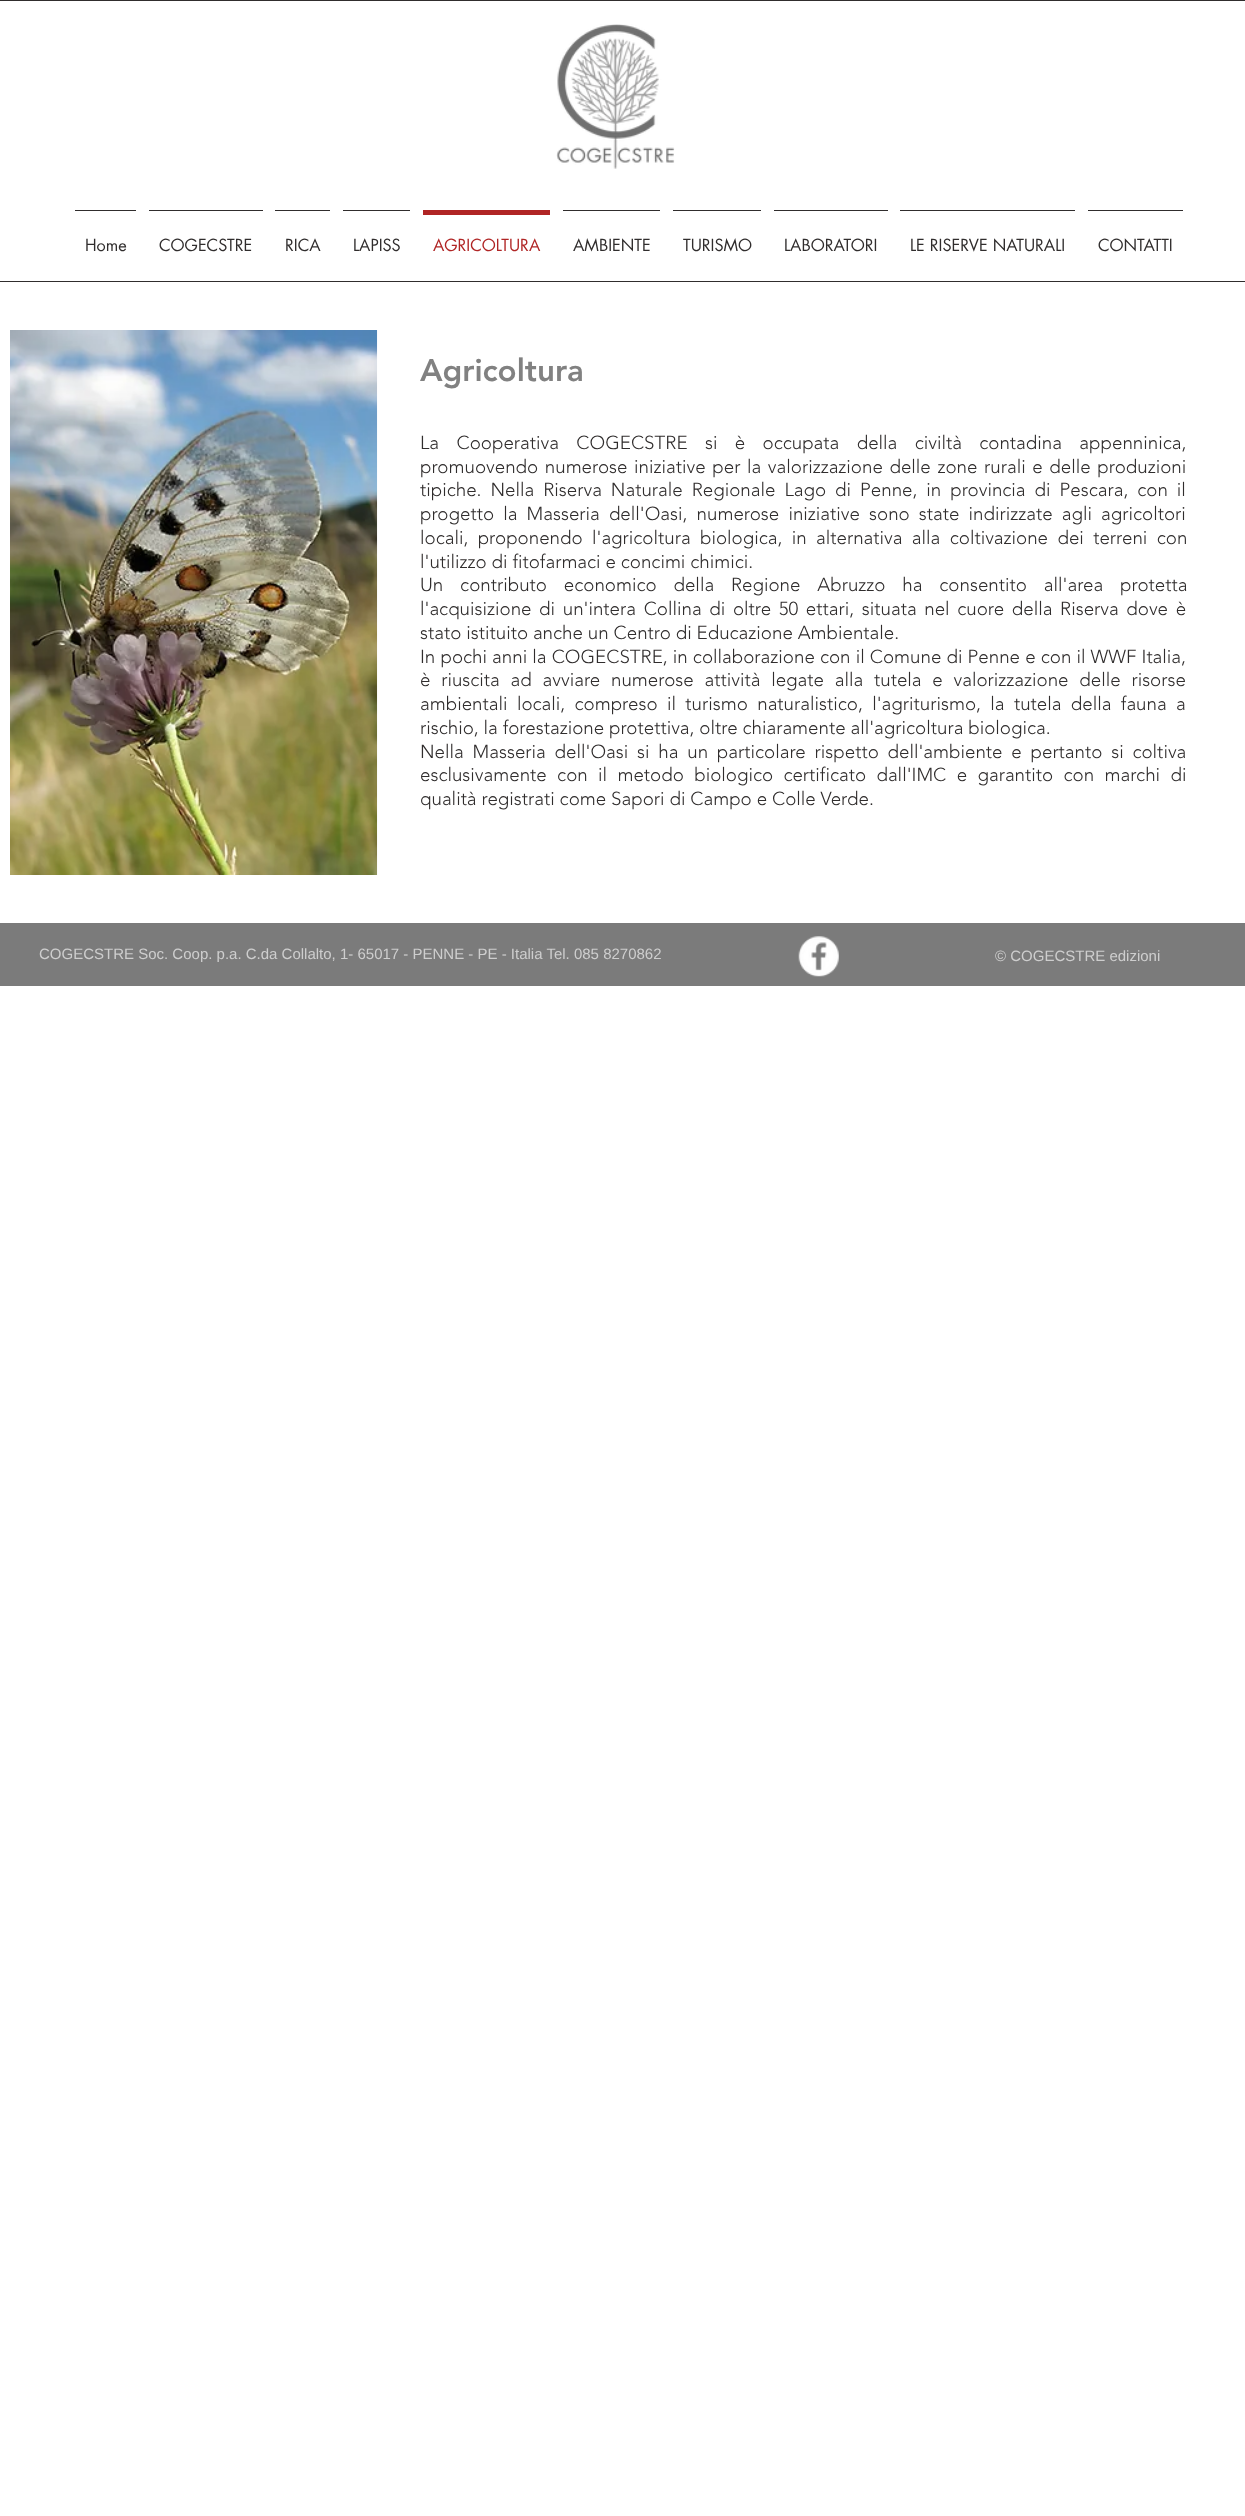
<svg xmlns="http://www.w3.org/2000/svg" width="1245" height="2516">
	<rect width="100%" height="100%" fill="#FFFFFF" />
	<rect x="0" y="0" width="1245" height="1" fill="#302D2D" />
	<rect x="0" y="281" width="1245" height="1" fill="#302D2D" />
	<image x="556" y="24" width="119" height="145" href="assets/img1.png" />
	<rect x="75" y="210" width="61" height="1" fill="#302D2D" />
	<text x="85" y="251" font-family="futura" font-size="16.25" fill="#302D2D">Home</text>
	<rect x="149" y="210" width="114" height="1" fill="#302D2D" />
	<text x="159" y="251" font-family="futura" font-size="16.25" fill="#302D2D">COGECSTRE</text>
	<rect x="275" y="210" width="55" height="1" fill="#302D2D" />
	<text x="285" y="251" font-family="futura" font-size="16.25" fill="#302D2D">RICA</text>
	<rect x="343" y="210" width="67" height="1" fill="#302D2D" />
	<text x="353" y="251" font-family="futura" font-size="16.25" fill="#302D2D">LAPISS</text>
	<rect x="423" y="210" width="127" height="5" fill="#B02525" />
	<text x="433" y="251" font-family="futura" font-size="16.25" fill="#B02525">AGRICOLTURA</text>
	<rect x="563" y="210" width="97" height="1" fill="#302D2D" />
	<text x="573" y="251" font-family="futura" font-size="16.25" fill="#302D2D">AMBIENTE</text>
	<rect x="673" y="210" width="88" height="1" fill="#302D2D" />
	<text x="683" y="251" font-family="futura" font-size="16.25" fill="#302D2D">TURISMO</text>
	<rect x="774" y="210" width="114" height="1" fill="#302D2D" />
	<text x="784" y="251" font-family="futura" font-size="16.25" fill="#302D2D">LABORATORI</text>
	<rect x="900" y="210" width="175" height="1" fill="#302D2D" />
	<text x="910" y="251" font-family="futura" font-size="16.25" fill="#302D2D">LE RISERVE NATURALI</text>
	<rect x="1088" y="210" width="95" height="1" fill="#302D2D" />
	<text x="1098" y="251" font-family="futura" font-size="16.25" fill="#302D2D">CONTATTI</text>
	<image x="10" y="330" width="368" height="545" href="assets/img2.png" />
	<text x="420" y="381" font-family="'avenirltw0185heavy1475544'" font-size="31.25" font-weight="900" fill="#818181">Agricoltura</text>
	<g font-family="'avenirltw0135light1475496'" font-size="18.75" font-weight="300" fill="#302D2D">
		<text x="420" y="449" word-spacing="12.5">La Cooperativa COGECSTRE si è occupata della civiltà contadina appenninica,</text>
		<text x="420" y="473" word-spacing="1.75">promuovendo numerose iniziative per la valorizzazione delle zone rurali e delle produzioni</text>
		<text x="420" y="496" word-spacing="4.1">tipiche. Nella Riserva Naturale Regionale Lago di Penne, in provincia di Pescara, con il</text>
		<text x="420" y="520" word-spacing="4.25">progetto la Masseria dell'Oasi, numerose iniziative sono state indirizzate agli agricoltori</text>
		<text x="420" y="544" word-spacing="4.5">locali, proponendo l'agricoltura biologica, in alternativa alla coltivazione dei terreni con</text>
		<text x="420" y="568">l'utilizzo di fitofarmaci e concimi chimici.</text>
		<text x="420" y="591" word-spacing="12">Un contributo economico della Regione Abruzzo ha consentito all'area protetta</text>
		<text x="420" y="615" word-spacing="2.75">l'acquisizione di un'intera Collina di oltre 50 ettari, situata nel cuore della Riserva dove è</text>
		<text x="420" y="639">stato istituito anche un Centro di Educazione Ambientale.</text>
		<text x="420" y="663" word-spacing="0.25">In pochi anni la COGECSTRE, in collaborazione con il Comune di Penne e con il WWF Italia,</text>
		<text x="420" y="686" word-spacing="5.9">è riuscita ad avviare numerose attività legate alla tutela e valorizzazione delle risorse</text>
		<text x="420" y="710" word-spacing="4.5">ambientali locali, compreso il turismo naturalistico, l'agriturismo, la tutela della fauna a</text>
		<text x="420" y="734">rischio, la forestazione protettiva, oltre chiaramente all'agricoltura biologica.</text>
		<text x="420" y="758" word-spacing="3.9">Nella Masseria dell'Oasi si ha un particolare rispetto dell'ambiente e pertanto si coltiva</text>
		<text x="420" y="781" word-spacing="5.5">esclusivamente con il metodo biologico certificato dall'IMC e garantito con marchi di</text>
		<text x="420" y="805">qualità registrati come Sapori di Campo e Colle Verde.</text>
	</g>
	<rect x="0" y="923" width="1245" height="63" fill="#7B7B7B" />
	<text x="39" y="959" font-family="Liberation Sans" font-size="15" fill="#CECECE">COGECSTRE Soc. Coop. p.a. C.da Collalto, 1- 65017 - PENNE - PE - Italia Tel. 085 8270862</text>
	<image x="798" y="936" width="41" height="41" href="assets/img3.png" />
	<text x="995" y="961" font-family="Liberation Sans" font-size="15" fill="#CECECE">© COGECSTRE edizioni</text>
</svg>
